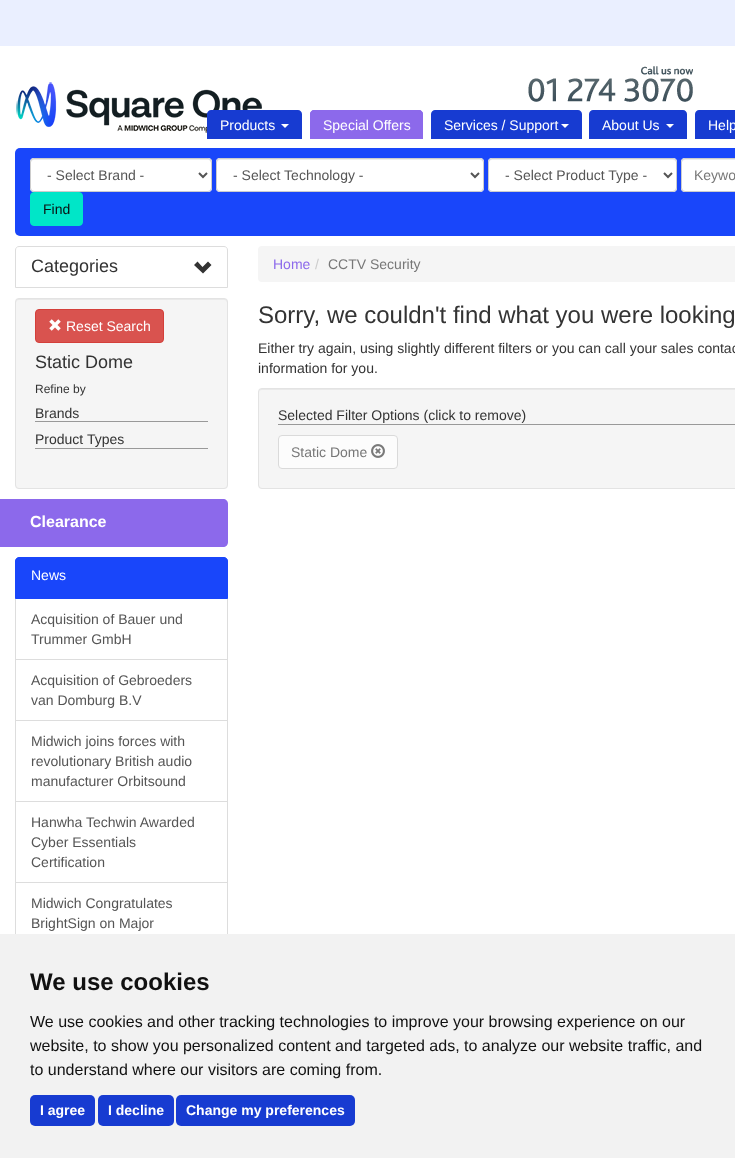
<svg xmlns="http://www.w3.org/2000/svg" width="735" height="1158">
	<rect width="100%" height="100%" fill="#EAEFFF" />
	<rect x="0" y="46" width="735" height="888" fill="#FFFFFF" />
	<image x="16" y="82" width="246" height="51" href="assets/img1.png" />
	<image x="528" y="66" width="165" height="36" href="assets/img2.png" />
	<path d="M211 110H298C300 110 302 112 302 114V139H207V114C207 112 209 110 211 110Z" fill="#173BD1" />
	<text x="220" y="130" font-family="Liberation Sans" font-size="14" fill="#FFFFFF">Products</text>
	<path d="M281 124H289L285 128Z" fill="#FFFFFF" />
	<path d="M314 110H419C421 110 423 112 423 114V139H310V114C310 112 312 110 314 110Z" fill="#8C69EB" />
	<path d="M314 110H419C421 110 423 112 423 114V139H310V114C310 112 312 110 314 110ZM314 111H419C421 111 422 112 422 114V139H311V114C311 112 312 111 314 111Z" fill="#8C69EB" fill-rule="evenodd" />
	<text x="323" y="130" font-family="Liberation Sans" font-size="14" fill="#FFFFFF">Special Offers</text>
	<path d="M435 110H578C580 110 582 112 582 114V139H431V114C431 112 433 110 435 110Z" fill="#173BD1" />
	<text x="444" y="130" font-family="Liberation Sans" font-size="14" fill="#FFFFFF">Services / Support</text>
	<path d="M561 124H569L565 128Z" fill="#FFFFFF" />
	<path d="M593 110H683C685 110 687 112 687 114V139H589V114C589 112 591 110 593 110Z" fill="#173BD1" />
	<text x="602" y="130" font-family="Liberation Sans" font-size="14" fill="#FFFFFF">About Us</text>
	<path d="M666 124H674L670 128Z" fill="#FFFFFF" />
	<path d="M699 110H735C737 110 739 112 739 114V139H695V114C695 112 697 110 699 110Z" fill="#173BD1" />
	<text x="708" y="130" font-family="Liberation Sans" font-size="14" fill="#FFFFFF">Help</text>
	<rect x="15" y="148" width="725" height="88" rx="5" fill="#1946FA" />
	<rect x="30" y="158" width="182" height="34" rx="4" fill="#FFFFFF" />
	<path d="M34 160H209L210 161L211 163V162C211 160 210 159 208 159H34C32 159 31 160 31 162V163C31 161 32 160 34 160Z" fill="#ECECEC" />
	<rect x="30.5" y="158.5" width="181" height="33" rx="3.5" fill="none" stroke="#CCCCCC" />
	<path d="M199 173L203 177L207 173" fill="none" stroke="#555555" stroke-width="2" />
	<text x="47" y="180" font-family="Liberation Sans" font-size="14" fill="#555555">- Select Brand -</text>
	<rect x="216" y="158" width="268" height="34" rx="4" fill="#FFFFFF" />
	<path d="M220 160H480C482 160 483 161 483 163V162C483 160 482 159 480 159H220C218 159 217 160 217 162V163C217 161 218 160 220 160Z" fill="#ECECEC" />
	<rect x="216.5" y="158.5" width="267" height="33" rx="3.5" fill="none" stroke="#CCCCCC" />
	<path d="M471 173L475 177L479 173" fill="none" stroke="#555555" stroke-width="2" />
	<text x="233" y="180" font-family="Liberation Sans" font-size="14" fill="#555555">- Select Technology -</text>
	<rect x="488" y="158" width="189" height="34" rx="4" fill="#FFFFFF" />
	<path d="M492 160H673C675 160 676 161 676 163C676 161 675 159 673 159H491C489 160 489 161 489 163C489 161 490 160 492 160Z" fill="#ECECEC" />
	<rect x="488.5" y="158.5" width="188" height="33" rx="3.5" fill="none" stroke="#CCCCCC" />
	<path d="M664 173L668 177L672 173" fill="none" stroke="#555555" stroke-width="2" />
	<text x="505" y="180" font-family="Liberation Sans" font-size="14" fill="#555555">- Select Product Type -</text>
	<rect x="681" y="158" width="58" height="34" rx="4" fill="#FFFFFF" />
	<path d="M685 160H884C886 160 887 161 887 163C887 161 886 159 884 159H685C683 159 682 161 682 163C682 161 683 160 685 160Z" fill="#ECECEC" />
	<rect x="681.5" y="158.5" width="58" height="33" rx="3.5" fill="none" stroke="#CCCCCC" />
	<text x="694" y="180" font-family="Liberation Sans" font-size="14" fill="#777777">Keywo</text>
	<rect x="30.5" y="192.5" width="52" height="33" rx="3.5" fill="#00E6C8" stroke="#00E6C8" />
	<text x="43" y="214" font-family="Liberation Sans" font-size="14" fill="#0B0F11">Find</text>
	<path d="M19 246.5H224C226 246.5 227.5 248 227.5 250V287.5H15.5V250C15.5 248 17 246.5 19 246.5Z" fill="none" stroke="#DDDDDD" />
	<text x="31" y="272" font-family="Liberation Sans" font-size="18" fill="#333333">Categories</text>
	<path d="M203 273.5L211.5 265L208 261.5L202.5 267L197.5 261.5L194 265Z" fill="#333333" />
	<rect x="15" y="298" width="213" height="191" rx="4" fill="#F5F5F5" />
	<path d="M19 300H224C226 300 227 301 227 303V302C227 300 226 299 224 299H19C17 299 16 300 16 302V303C16 301 17 300 19 300Z" fill="#E9E9E9" />
	<rect x="15.5" y="298.5" width="212" height="190" rx="3.5" fill="none" stroke="#E3E3E3" />
	<rect x="35.5" y="309.5" width="128" height="33" rx="3.5" fill="#D9534F" stroke="#D43F3A" />
	<image x="49" y="319" width="12" height="12" href="assets/img3.png" />
	<text x="66" y="331" font-family="Liberation Sans" font-size="14" fill="#FFFFFF">Reset Search</text>
	<text x="35" y="368" font-family="Liberation Sans" font-size="18" fill="#333333">Static Dome</text>
	<text x="35" y="393" font-family="Liberation Sans" font-size="12" fill="#333333">Refine by</text>
	<rect x="35" y="421" width="173" height="1" fill="#999999" />
	<text x="35" y="418" font-family="Liberation Sans" font-size="14" fill="#333333">Brands</text>
	<rect x="35" y="448" width="173" height="1" fill="#999999" />
	<text x="35" y="444" font-family="Liberation Sans" font-size="14" fill="#333333">Product Types</text>
	<path d="M15 499H223C226 499 228 501 228 504V542C228 545 226 547 223 547H15Z" fill="#8C69EB" />
	<rect x="0" y="499" width="15" height="48" fill="#8C69EB" />
	<text x="30" y="527" font-family="Liberation Sans" font-size="16" font-weight="700" fill="#FFFFFF">Clearance</text>
	<rect x="15.5" y="598.5" width="212" height="61" fill="none" stroke="#DDDDDD" />
	<path d="M19 557.5H224C226 557.5 227.5 559 227.5 561V598.5H15.5V561C15.5 559 17 557.5 19 557.5Z" fill="#1946FA" stroke="#1946FA" />
	<text x="31" y="580" font-family="Liberation Sans" font-size="14" fill="#FFFFFF">News</text>
	<g font-family="Liberation Sans" font-size="14" fill="#555555">
		<text x="31" y="624">Acquisition of Bauer und</text>
		<text x="31" y="644">Trummer GmbH</text>
	</g>
	<rect x="15.5" y="659.5" width="212" height="61" fill="none" stroke="#DDDDDD" />
	<g font-family="Liberation Sans" font-size="14" fill="#555555">
		<text x="31" y="685">Acquisition of Gebroeders</text>
		<text x="31" y="705">van Domburg B.V</text>
	</g>
	<rect x="15.5" y="720.5" width="212" height="81" fill="none" stroke="#DDDDDD" />
	<g font-family="Liberation Sans" font-size="14" fill="#555555">
		<text x="31" y="746">Midwich joins forces with</text>
		<text x="31" y="766">revolutionary British audio</text>
		<text x="31" y="786">manufacturer Orbitsound</text>
	</g>
	<rect x="15.5" y="801.5" width="212" height="81" fill="none" stroke="#DDDDDD" />
	<g font-family="Liberation Sans" font-size="14" fill="#555555">
		<text x="31" y="827">Hanwha Techwin Awarded</text>
		<text x="31" y="847">Cyber Essentials</text>
		<text x="31" y="867">Certification</text>
	</g>
	<rect x="15.5" y="882.5" width="212" height="81" fill="none" stroke="#DDDDDD" />
	<g font-family="Liberation Sans" font-size="14" fill="#555555">
		<text x="31" y="908">Midwich Congratulates</text>
		<text x="31" y="928">BrightSign on Major</text>
	</g>
	<rect x="258" y="246" width="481" height="36" rx="4" fill="#F5F5F5" />
	<text x="273" y="269" font-family="Liberation Sans" font-size="14" fill="#8C69EB">Home</text>
	<text x="315" y="269" font-family="Liberation Sans" font-size="14" fill="#CCCCCC">/</text>
	<text x="328" y="269" font-family="Liberation Sans" font-size="14" fill="#777777">CCTV Security</text>
	<text x="258" y="323" font-family="Liberation Sans" font-size="24" fill="#333333">Sorry, we couldn't find what you were looking</text>
	<g font-family="Liberation Sans" font-size="14" fill="#333333">
		<text x="258" y="353">Either try again, using slightly different filters or you can call your sales contac</text>
		<text x="258" y="373">information for you.</text>
	</g>
	<rect x="258" y="388" width="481" height="101" rx="4" fill="#F5F5F5" />
	<path d="M262 390H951C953 390 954 391 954 393C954 391 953 389 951 389H262C260 389 259 391 259 393C259 391 260 390 262 390Z" fill="#E9E9E9" />
	<rect x="258.5" y="388.5" width="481" height="100" rx="3.5" fill="none" stroke="#E3E3E3" />
	<rect x="278" y="424" width="457" height="1" fill="#999999" />
	<text x="278" y="420" font-family="Liberation Sans" font-size="14" fill="#333333">Selected Filter Options (click to remove)</text>
	<rect x="278.5" y="435.5" width="119" height="33" rx="3.5" fill="#FCFCFC" stroke="#DADADA" />
	<text x="291" y="457" font-family="Liberation Sans" font-size="14" fill="#777777">Static Dome</text>
	<image x="371" y="444" width="14" height="14" href="assets/img4.png" />
	<rect x="0" y="934" width="735" height="224" fill="#F2F2F2" />
	<text x="30" y="990" font-family="Liberation Sans" font-size="24" font-weight="700" fill="#111111">We use cookies</text>
	<g font-family="Liberation Sans" font-size="16" fill="#111111">
		<text x="30" y="1027">We use cookies and other tracking technologies to improve your browsing experience on our</text>
		<text x="30" y="1051">website, to show you personalized content and targeted ads, to analyze our website traffic, and</text>
		<text x="30" y="1075">to understand where our visitors are coming from.</text>
	</g>
	<rect x="30" y="1095" width="65" height="31" rx="5" fill="#173BD1" />
	<text x="40" y="1115" font-family="Liberation Sans" font-size="14" font-weight="700" fill="#FFFFFF">I agree</text>
	<rect x="98" y="1095" width="76" height="31" rx="5" fill="#173BD1" />
	<text x="108" y="1115" font-family="Liberation Sans" font-size="14" font-weight="700" fill="#FFFFFF">I decline</text>
	<rect x="176" y="1095" width="179" height="31" rx="5" fill="#173BD1" />
	<text x="186" y="1115" font-family="Liberation Sans" font-size="14" font-weight="700" fill="#FFFFFF">Change my preferences</text>
</svg>
